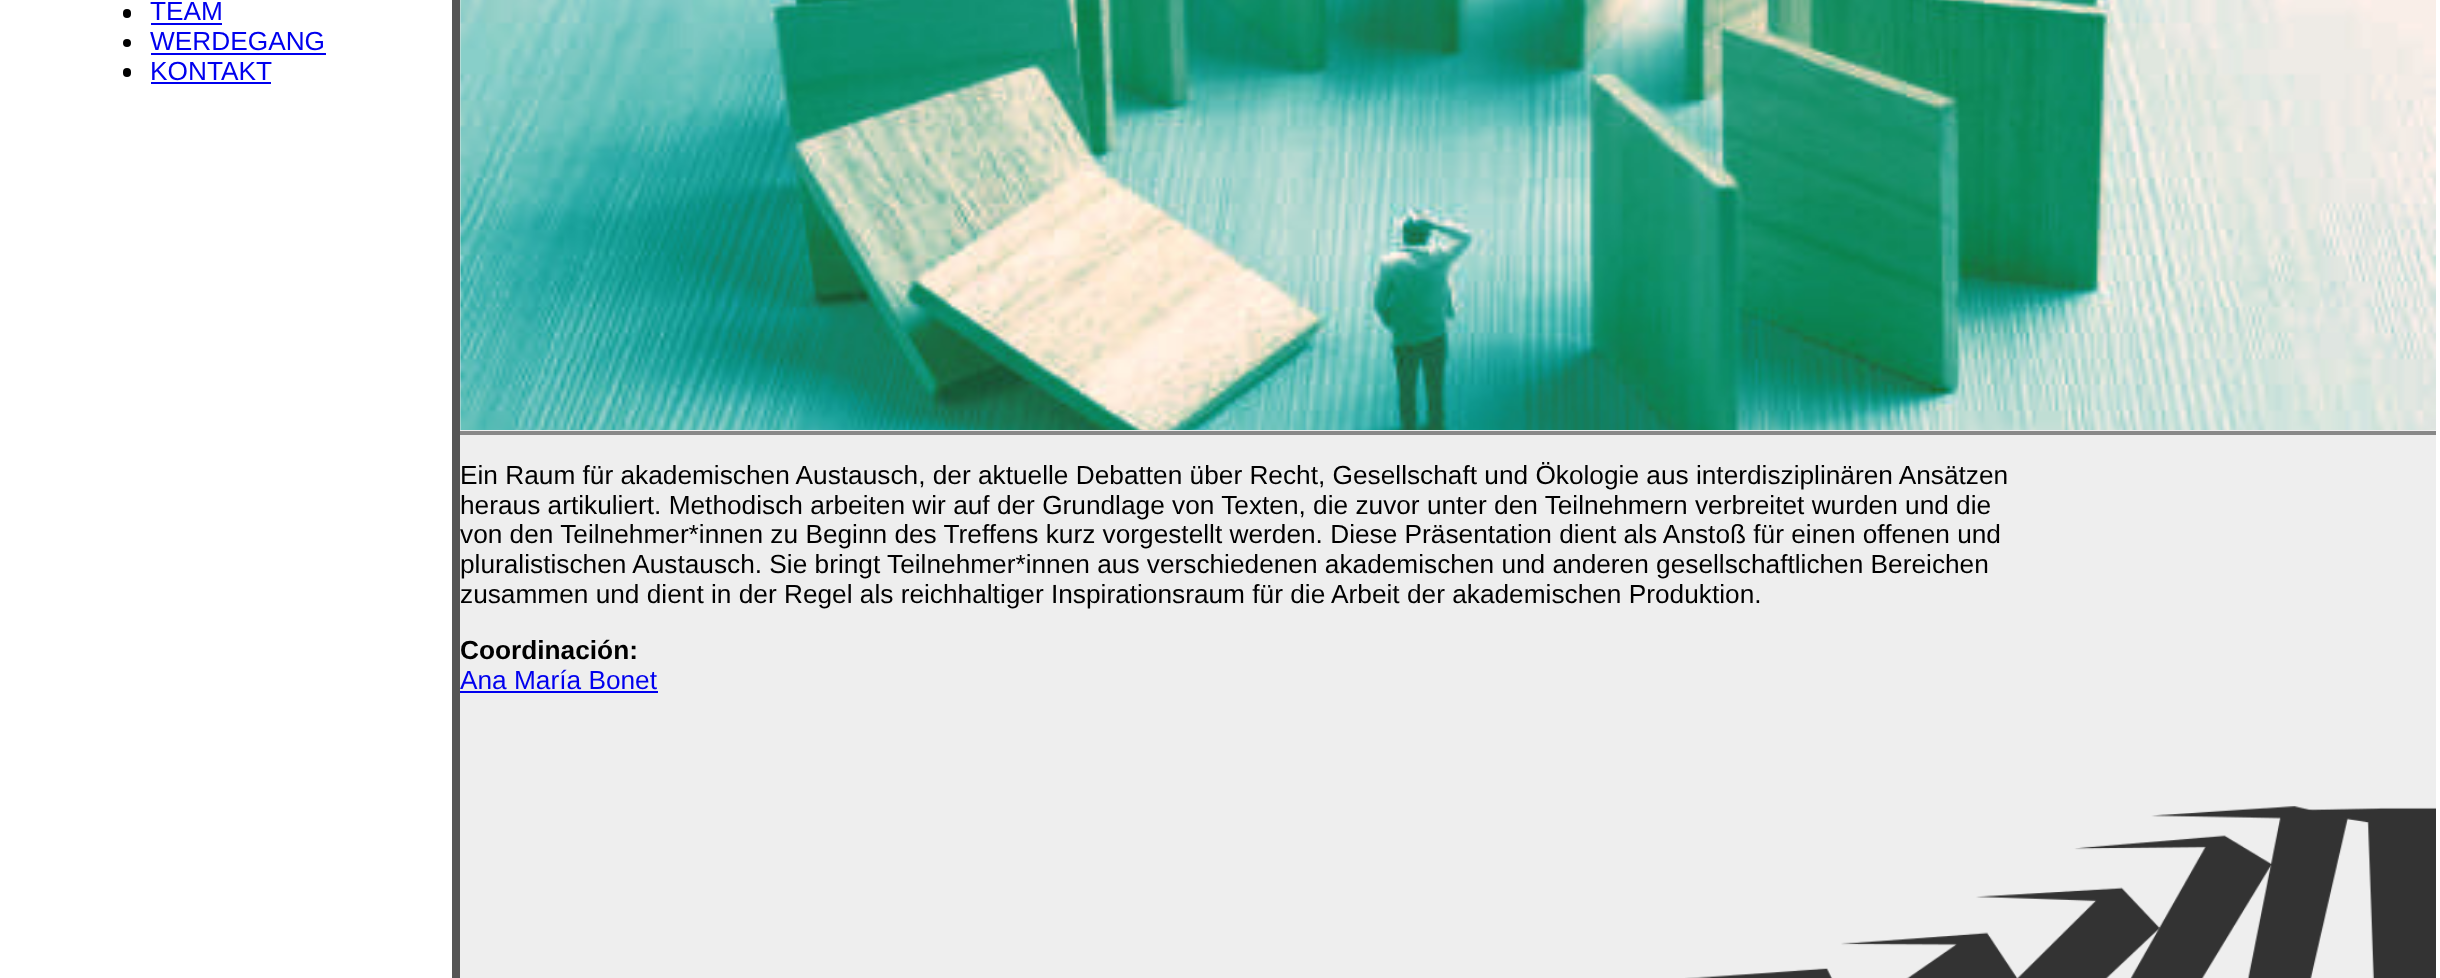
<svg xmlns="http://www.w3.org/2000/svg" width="2440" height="978">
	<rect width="100%" height="100%" fill="#FFFFFF" />
	<rect x="123" y="9" width="8" height="9" rx="4" fill="#000000" />
	<text x="150" y="20" font-family="Liberation Sans" font-size="26.25" fill="#0000EE">TEAM</text>
	<rect x="151" y="23" width="71" height="2" fill="#0000EE" />
	<circle cx="127" cy="43" r="4" fill="#000000" />
	<text x="150" y="50" font-family="Liberation Sans" font-size="26.25" fill="#0000EE">WERDEGANG</text>
	<rect x="151" y="53" width="175" height="2" fill="#0000EE" />
	<rect x="123" y="68" width="8" height="9" rx="4" fill="#000000" />
	<text x="150" y="80" font-family="Liberation Sans" font-size="26.25" fill="#0000EE">KONTAKT</text>
	<rect x="151" y="82" width="120" height="2" fill="#0000EE" />
	<rect x="452" y="0" width="8" height="978" fill="#555555" />
	<rect x="460" y="0" width="1976" height="978" fill="#EEEEEE" />
	<rect x="460" y="431" width="1976" height="4" fill="#888888" />
	<image x="460" y="0" width="1976" height="430" href="assets/img1.png" />
	<image x="1685" y="806" width="751" height="172" href="assets/img2.png" />
	<g font-family="Liberation Sans" font-size="26.25" fill="#000000">
		<text x="460" y="484">Ein Raum für akademischen Austausch, der aktuelle Debatten über Recht, Gesellschaft und Ökologie aus interdisziplinären Ansätzen</text>
		<text x="460" y="514">heraus artikuliert. Methodisch arbeiten wir auf der Grundlage von Texten, die zuvor unter den Teilnehmern verbreitet wurden und die</text>
		<text x="460" y="543">von den Teilnehmer*innen zu Beginn des Treffens kurz vorgestellt werden. Diese Präsentation dient als Anstoß für einen offenen und</text>
		<text x="460" y="573">pluralistischen Austausch. Sie bringt Teilnehmer*innen aus verschiedenen akademischen und anderen gesellschaftlichen Bereichen</text>
		<text x="460" y="603">zusammen und dient in der Regel als reichhaltiger Inspirationsraum für die Arbeit der akademischen Produktion.</text>
	</g>
	<text x="460" y="659" font-family="Liberation Sans" font-size="26.25" font-weight="700" fill="#000000">Coordinación:</text>
	<text x="460" y="689" font-family="Liberation Sans" font-size="26.25" fill="#0000EE">Ana María Bonet</text>
	<rect x="460" y="691" width="198" height="2" fill="#0000EE" />
</svg>
